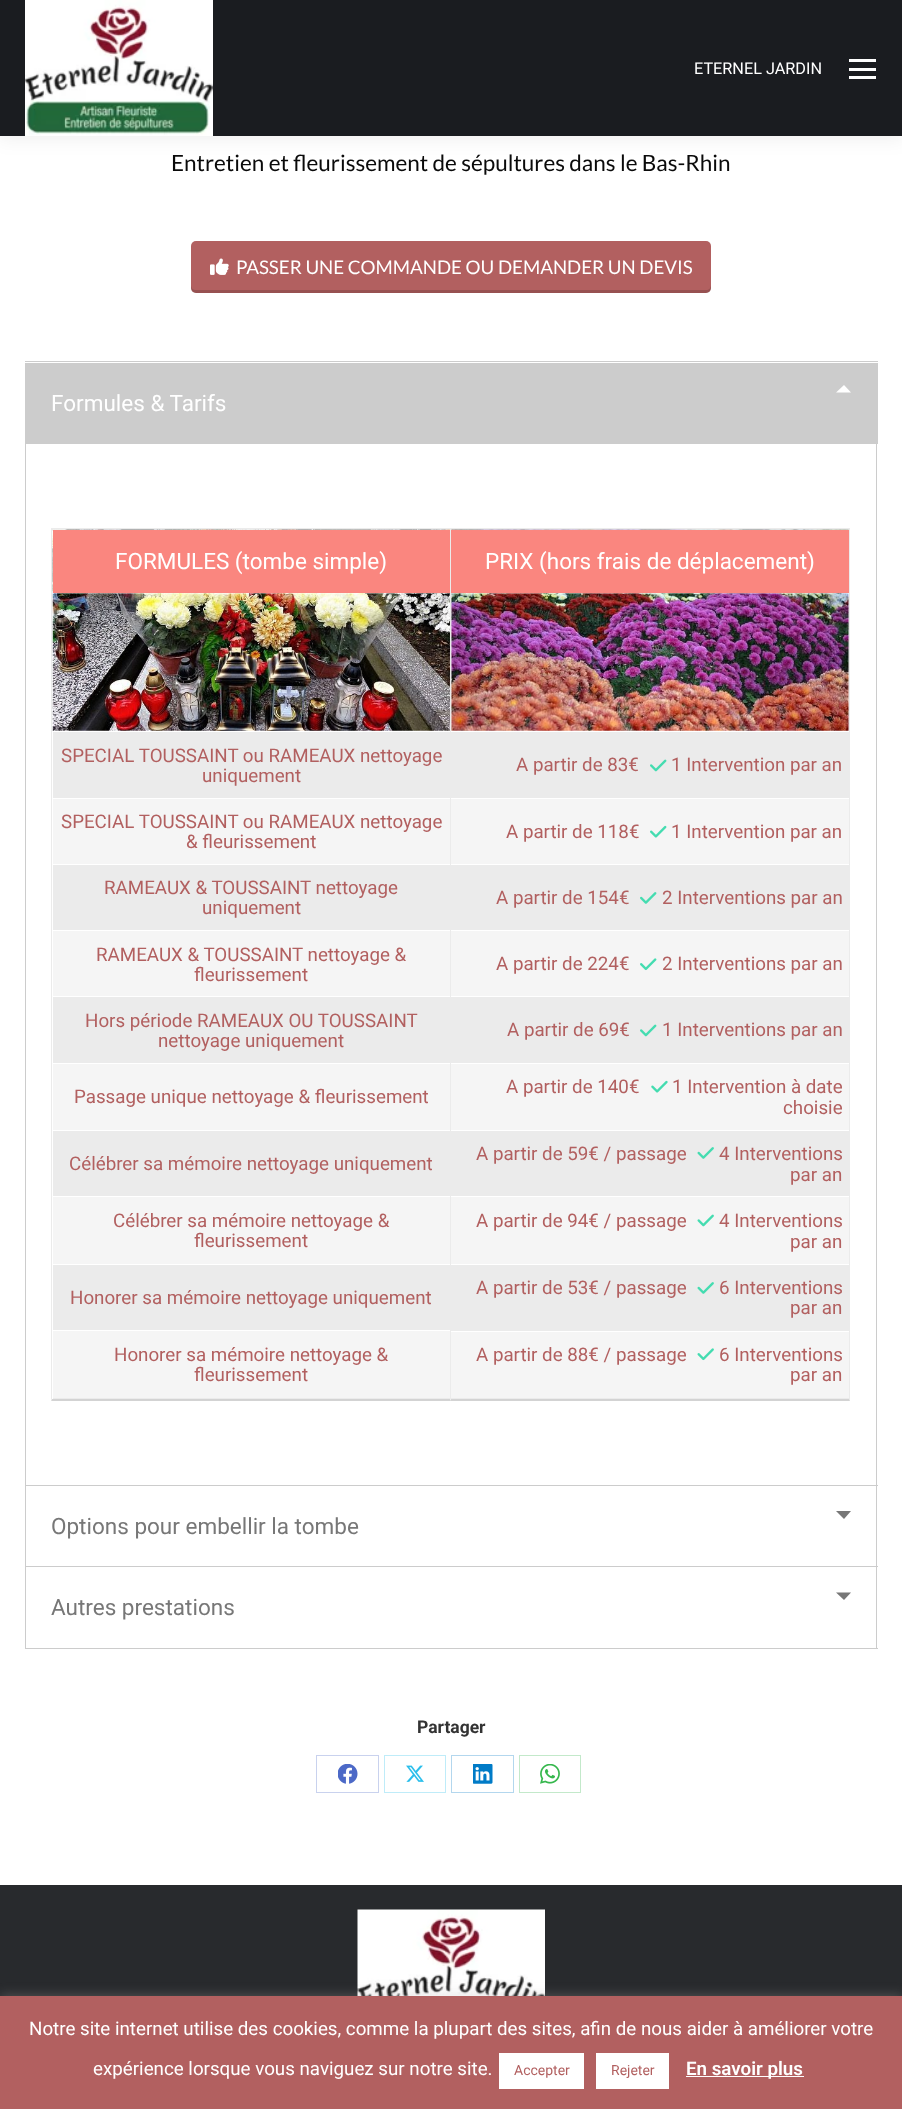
<svg xmlns="http://www.w3.org/2000/svg" width="902" height="2109">
	<rect width="100%" height="100%" fill="#FFFFFF" />
	<rect x="-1" y="-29" width="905" height="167" fill="#000000" fill-opacity="0.07" filter="blur(9.5px)" />
	<rect x="0" y="0" width="902" height="136" fill="#1A1C20" />
	<image x="25" y="0" width="188" height="136" href="assets/img1.png" />
	<text x="694" y="74" font-family="Roboto" font-size="16.25" fill="#FFFFFF">ETERNEL JARDIN</text>
	<rect x="849" y="59" width="27" height="3" fill="#FFFFFF" />
	<rect x="849" y="68" width="27" height="3" fill="#FFFFFF" />
	<rect x="849" y="76" width="27" height="3" fill="#FFFFFF" />
	<text x="171" y="171" font-family="Lato" font-size="22.5" fill="#0A0A0A">Entretien et fleurissement de sépultures dans le Bas-Rhin</text>
	<rect x="191" y="241" width="520" height="52" rx="5" fill="#B26060" />
	<path d="M191 285V288C191 291 193 293 196 293H706C709 293 711 291 711 288V285C711 288 709 290 706 290H196C193 290 191 288 191 285Z" fill="#000000" fill-opacity="0.15" />
	<image x="210" y="258" width="19" height="17" href="assets/img2.png" />
	<text x="236" y="274" font-family="Lato" font-size="18.75" fill="#FFFFFF">PASSER UNE COMMANDE OU DEMANDER UN DEVIS</text>
	<rect x="25" y="361" width="853" height="1" fill="#CCCCCC" />
	<rect x="25" y="363" width="853" height="81" fill="#CCCCCC" />
	<path d="M851 392.5H836L844 385Z" fill="#FFFFFF" />
	<text x="51" y="411" font-family="Roboto" font-size="22.5" fill="#FFFFFF">Formules &amp; Tarifs</text>
	<rect x="876" y="444" width="1" height="1205" fill="#CCCCCC" />
	<rect x="25" y="1485" width="853" height="1" fill="#CCCCCC" />
	<rect x="25" y="444" width="1" height="1042" fill="#CCCCCC" />
	<rect x="51" y="528" width="400" height="3" fill="#EBEBEB" />
	<path d="M451 1401H51L52 1399H450Z" fill="#D3D3D3" />
	<path d="M51 1401V528L52 530V1399Z" fill="#EBEBEB" />
	<image x="52" y="529" width="398" height="202" href="assets/img3.png" />
	<rect x="53" y="530" width="397" height="63" fill="#FA867F" />
	<text x="115" y="569" font-family="Roboto" font-size="22.5" fill="#FFFFFF">FORMULES (tombe simple)</text>
	<rect x="53" y="593" width="397" height="1" fill="#FFFFFF" fill-opacity="0.35" />
	<rect x="53" y="1398" width="397" height="1" fill="#EBEBEB" />
	<rect x="53" y="732" width="397" height="66" fill="#EBEBEB" />
	<g font-family="Roboto" font-size="18.75" fill="#B26060">
		<text x="61" y="762">SPECIAL TOUSSAINT ou RAMEAUX nettoyage</text>
		<text x="202" y="782">uniquement</text>
	</g>
	<rect x="53" y="799" width="397" height="65" fill="#F5F5F5" />
	<g font-family="Roboto" font-size="18.75" fill="#B26060">
		<text x="61" y="828">SPECIAL TOUSSAINT ou RAMEAUX nettoyage</text>
		<text x="186" y="848">&amp; fleurissement</text>
	</g>
	<rect x="53" y="865" width="397" height="65" fill="#EBEBEB" />
	<g font-family="Roboto" font-size="18.75" fill="#B26060">
		<text x="104" y="894">RAMEAUX &amp; TOUSSAINT nettoyage</text>
		<text x="202" y="914">uniquement</text>
	</g>
	<rect x="53" y="931" width="397" height="65" fill="#F5F5F5" />
	<g font-family="Roboto" font-size="18.75" fill="#B26060">
		<text x="96" y="961">RAMEAUX &amp; TOUSSAINT nettoyage &amp;</text>
		<text x="194" y="981">fleurissement</text>
	</g>
	<rect x="53" y="997" width="397" height="66" fill="#EBEBEB" />
	<g font-family="Roboto" font-size="18.75" fill="#B26060">
		<text x="85" y="1027">Hors période RAMEAUX OU TOUSSAINT</text>
		<text x="158" y="1047">nettoyage uniquement</text>
	</g>
	<rect x="53" y="1064" width="397" height="66" fill="#F5F5F5" />
	<text x="74" y="1103" font-family="Roboto" font-size="18.75" fill="#B26060">Passage unique nettoyage &amp; fleurissement</text>
	<rect x="53" y="1131" width="397" height="65" fill="#EBEBEB" />
	<text x="69" y="1170" font-family="Roboto" font-size="18.75" fill="#B26060">Célébrer sa mémoire nettoyage uniquement</text>
	<rect x="53" y="1197" width="397" height="67" fill="#F5F5F5" />
	<g font-family="Roboto" font-size="18.75" fill="#B26060">
		<text x="113" y="1227">Célébrer sa mémoire nettoyage &amp;</text>
		<text x="194" y="1247">fleurissement</text>
	</g>
	<rect x="53" y="1265" width="397" height="65" fill="#EBEBEB" />
	<text x="70" y="1304" font-family="Roboto" font-size="18.75" fill="#B26060">Honorer sa mémoire nettoyage uniquement</text>
	<rect x="53" y="1331" width="397" height="67" fill="#F5F5F5" />
	<g font-family="Roboto" font-size="18.75" fill="#B26060">
		<text x="114" y="1361">Honorer sa mémoire nettoyage &amp;</text>
		<text x="194" y="1381">fleurissement</text>
	</g>
	<rect x="450" y="528" width="400" height="2" fill="#EBEBEB" />
	<path d="M850 528V1401L849 1399V530Z" fill="#EBEBEB" />
	<path d="M850 1401H450L451 1399H849Z" fill="#D3D3D3" />
	<path d="M450 1401V528L451 530V1399Z" fill="#EBEBEB" />
	<image x="451" y="529" width="398" height="202" href="assets/img4.png" />
	<rect x="451" y="530" width="398" height="63" fill="#FA867F" />
	<text x="485" y="569" font-family="Roboto" font-size="22.5" fill="#FFFFFF">PRIX (hors frais de déplacement)</text>
	<rect x="451" y="593" width="398" height="1" fill="#FFFFFF" fill-opacity="0.35" />
	<rect x="451" y="1398" width="398" height="1" fill="#EBEBEB" />
	<rect x="451" y="732" width="398" height="66" fill="#EBEBEB" />
	<text x="516" y="771" font-family="Roboto" font-size="18.75" fill="#B26060">A partir de 83€</text>
	<image x="650" y="759" width="17" height="13" href="assets/img5.png" />
	<text x="671" y="771" font-family="Roboto" font-size="18.75" fill="#B26060">1 Intervention par an</text>
	<rect x="451" y="799" width="398" height="65" fill="#F5F5F5" />
	<text x="506" y="838" font-family="Roboto" font-size="18.75" fill="#B26060">A partir de 118€</text>
	<image x="650" y="825" width="17" height="13" href="assets/img6.png" />
	<text x="671" y="838" font-family="Roboto" font-size="18.75" fill="#B26060">1 Intervention par an</text>
	<rect x="451" y="865" width="398" height="65" fill="#EBEBEB" />
	<text x="496" y="904" font-family="Roboto" font-size="18.75" fill="#B26060">A partir de 154€</text>
	<image x="640" y="892" width="17" height="12" href="assets/img7.png" />
	<text x="662" y="904" font-family="Roboto" font-size="18.75" fill="#B26060">2 Interventions par an</text>
	<rect x="451" y="931" width="398" height="65" fill="#F5F5F5" />
	<text x="496" y="970" font-family="Roboto" font-size="18.75" fill="#B26060">A partir de 224€</text>
	<image x="640" y="958" width="17" height="13" href="assets/img8.png" />
	<text x="662" y="970" font-family="Roboto" font-size="18.75" fill="#B26060">2 Interventions par an</text>
	<rect x="451" y="997" width="398" height="66" fill="#EBEBEB" />
	<text x="507" y="1036" font-family="Roboto" font-size="18.75" fill="#B26060">A partir de 69€</text>
	<image x="640" y="1024" width="17" height="13" href="assets/img5.png" />
	<text x="662" y="1036" font-family="Roboto" font-size="18.75" fill="#B26060">1 Interventions par an</text>
	<rect x="451" y="1064" width="398" height="66" fill="#F5F5F5" />
	<text x="506" y="1093" font-family="Roboto" font-size="18.75" fill="#B26060">A partir de 140€</text>
	<image x="651" y="1080" width="17" height="13" href="assets/img9.png" />
	<g font-family="Roboto" font-size="18.75" fill="#B26060">
		<text x="672" y="1093">1 Intervention à date</text>
		<text x="783" y="1114">choisie</text>
	</g>
	<rect x="451" y="1131" width="398" height="65" fill="#EBEBEB" />
	<text x="476" y="1160" font-family="Roboto" font-size="18.75" fill="#B26060">A partir de 59€ / passage</text>
	<image x="697" y="1147" width="17" height="12" href="assets/img10.png" />
	<g font-family="Roboto" font-size="18.75" fill="#B26060">
		<text x="719" y="1160">4 Interventions</text>
		<text x="790" y="1181">par an</text>
	</g>
	<rect x="451" y="1197" width="398" height="67" fill="#F5F5F5" />
	<text x="476" y="1227" font-family="Roboto" font-size="18.75" fill="#B26060">A partir de 94€ / passage</text>
	<image x="697" y="1214" width="17" height="13" href="assets/img11.png" />
	<g font-family="Roboto" font-size="18.75" fill="#B26060">
		<text x="719" y="1227">4 Interventions</text>
		<text x="790" y="1248">par an</text>
	</g>
	<rect x="451" y="1265" width="398" height="66" fill="#EBEBEB" />
	<text x="476" y="1294" font-family="Roboto" font-size="18.75" fill="#B26060">A partir de 53€ / passage</text>
	<image x="697" y="1282" width="17" height="12" href="assets/img10.png" />
	<g font-family="Roboto" font-size="18.75" fill="#B26060">
		<text x="719" y="1294">6 Interventions</text>
		<text x="790" y="1314">par an</text>
	</g>
	<rect x="451" y="1332" width="398" height="66" fill="#F5F5F5" />
	<text x="476" y="1361" font-family="Roboto" font-size="18.75" fill="#B26060">A partir de 88€ / passage</text>
	<image x="697" y="1348" width="17" height="13" href="assets/img12.png" />
	<g font-family="Roboto" font-size="18.75" fill="#B26060">
		<text x="719" y="1361">6 Interventions</text>
		<text x="790" y="1381">par an</text>
	</g>
	<rect x="25" y="1566" width="853" height="1" fill="#CCCCCC" />
	<rect x="25" y="1486" width="1" height="82" fill="#CCCCCC" />
	<path d="M836 1511H851L844 1519Z" fill="#777777" />
	<text x="51" y="1534" font-family="Roboto" font-size="22.5" fill="#777777">Options pour embellir la tombe</text>
	<rect x="25" y="1648" width="853" height="1" fill="#CCCCCC" />
	<rect x="25" y="1568" width="1" height="81" fill="#CCCCCC" />
	<path d="M836 1592.5H851L844 1600Z" fill="#777777" />
	<text x="51" y="1615" font-family="Roboto" font-size="22.5" fill="#777777">Autres prestations</text>
	<text x="417" y="1733" font-family="Roboto" font-size="17.5" font-weight="700" fill="#333333">Partager</text>
	<rect x="316.5" y="1755.5" width="62" height="37" fill="none" stroke="#C9D2EE" />
	<image x="338" y="1764" width="20" height="20" href="assets/img13.png" />
	<rect x="384.5" y="1755.5" width="61" height="37" fill="none" stroke="#BFECF9" />
	<image x="406" y="1765" width="18" height="17" href="assets/img14.png" />
	<rect x="451.5" y="1755.5" width="62" height="37" fill="none" stroke="#B3D7EE" />
	<image x="473" y="1764" width="20" height="20" href="assets/img15.png" />
	<rect x="519.5" y="1755.5" width="61" height="37" fill="none" stroke="#C3E9CA" />
	<image x="540" y="1764" width="20" height="20" href="assets/img16.png" />
	<rect x="0" y="1885" width="902" height="111" fill="#282A2D" />
	<image x="357" y="1909" width="188" height="87" href="assets/img17.png" />
	<rect x="0" y="1995" width="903" height="114" fill="#ACABAB" fill-opacity="0.3" filter="blur(6px)" />
	<rect x="0" y="1996" width="902" height="113" fill="#B26060" />
	<g font-family="Roboto" font-size="18.75" fill="#FFFFFF">
		<text x="29" y="2035">Notre site internet utilise des cookies, comme la plupart des sites, afin de nous aider à améliorer votre</text>
		<text x="93" y="2075">expérience lorsque vous naviguez sur notre site.</text>
	</g>
	<rect x="499" y="2053" width="85" height="36" fill="#FFFFFF" />
	<text x="514" y="2075" font-family="Roboto" font-size="14" fill="#B26060">Accepter</text>
	<rect x="596" y="2053" width="73" height="36" fill="#FFFFFF" />
	<text x="611" y="2075" font-family="Roboto" font-size="14" fill="#B26060">Rejeter</text>
	<rect x="686" y="2076" width="118" height="1" fill="#FFFFFF" />
	<text x="686" y="2075" font-family="Roboto" font-size="18.75" font-weight="600" fill="#FFFFFF">En savoir plus</text>
</svg>
